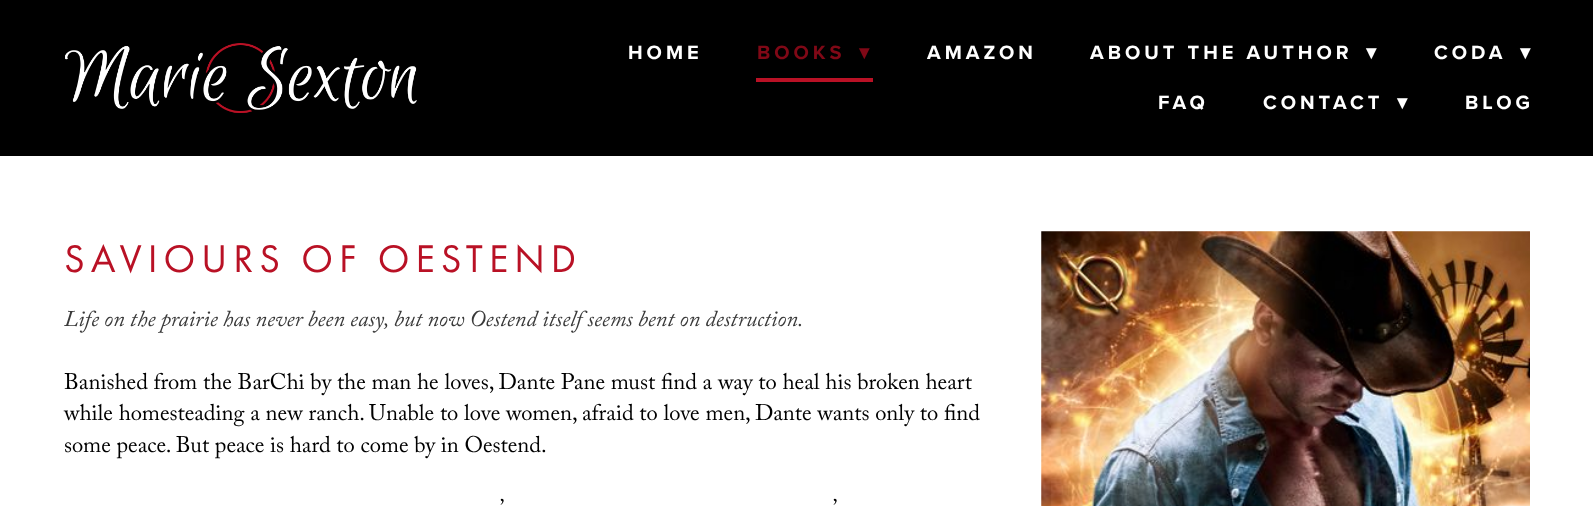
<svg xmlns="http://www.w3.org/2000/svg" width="1593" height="506">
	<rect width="100%" height="100%" fill="#FFFFFF" />
	<rect x="0" y="0" width="1593" height="156" fill="#000000" />
	<image x="65" y="43" width="352" height="70" href="assets/img1.png" />
	<text x="628" y="59" font-family="Proxima Nova" font-size="20" font-weight="700" letter-spacing="4" fill="#FFFFFF">HOME</text>
	<text x="757" y="59" font-family="Proxima Nova" font-size="20" font-weight="700" letter-spacing="4" fill="#800816">BOOKS</text>
	<text x="859" y="59" font-family="DejaVu Sans" font-size="20" font-weight="700" letter-spacing="4" fill="#800816">▾</text>
	<rect x="756" y="78" width="117" height="4" fill="#B91125" />
	<g font-family="Proxima Nova" font-size="20" font-weight="700" letter-spacing="4" fill="#FFFFFF">
		<text x="927" y="59">AMAZON</text>
		<text x="1090" y="59">ABOUT THE AUTHOR</text>
	</g>
	<text x="1366" y="59" font-family="DejaVu Sans" font-size="20" font-weight="700" letter-spacing="4" fill="#FFFFFF">▾</text>
	<text x="1434" y="59" font-family="Proxima Nova" font-size="20" font-weight="700" letter-spacing="4" fill="#FFFFFF">CODA</text>
	<text x="1520" y="59" font-family="DejaVu Sans" font-size="20" font-weight="700" letter-spacing="4" fill="#FFFFFF">▾</text>
	<g font-family="Proxima Nova" font-size="20" font-weight="700" letter-spacing="4" fill="#FFFFFF">
		<text x="1158" y="109">FAQ</text>
		<text x="1263" y="109">CONTACT</text>
	</g>
	<text x="1397" y="109" font-family="DejaVu Sans" font-size="20" font-weight="700" letter-spacing="4" fill="#FFFFFF">▾</text>
	<text x="1465" y="109" font-family="Proxima Nova" font-size="20" font-weight="700" letter-spacing="4" fill="#FFFFFF">BLOG</text>
	<text x="64" y="272" font-family="Futura PT" font-size="40" letter-spacing="6" fill="#B91125">SAVIOURS OF OESTEND</text>
	<text x="64" y="326" font-family="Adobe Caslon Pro" font-size="22.5" font-style="italic" fill="#393939">Life on the prairie has never been easy, but now Oestend itself seems bent on destruction.</text>
	<g font-family="Adobe Caslon Pro" font-size="22.5" fill="#000000">
		<text x="64" y="389">Banished from the BarChi by the man he loves, Dante Pane must find a way to heal his broken heart</text>
		<text x="64" y="420">while homesteading a new ranch. Unable to love women, afraid to love men, Dante wants only to find</text>
		<text x="64" y="452">some peace. But peace is hard to come by in Oestend.</text>
		<text x="500" y="515">’</text>
		<text x="833" y="515">’</text>
	</g>
	<image x="1041" y="231" width="489" height="275" href="assets/img2.png" />
</svg>
